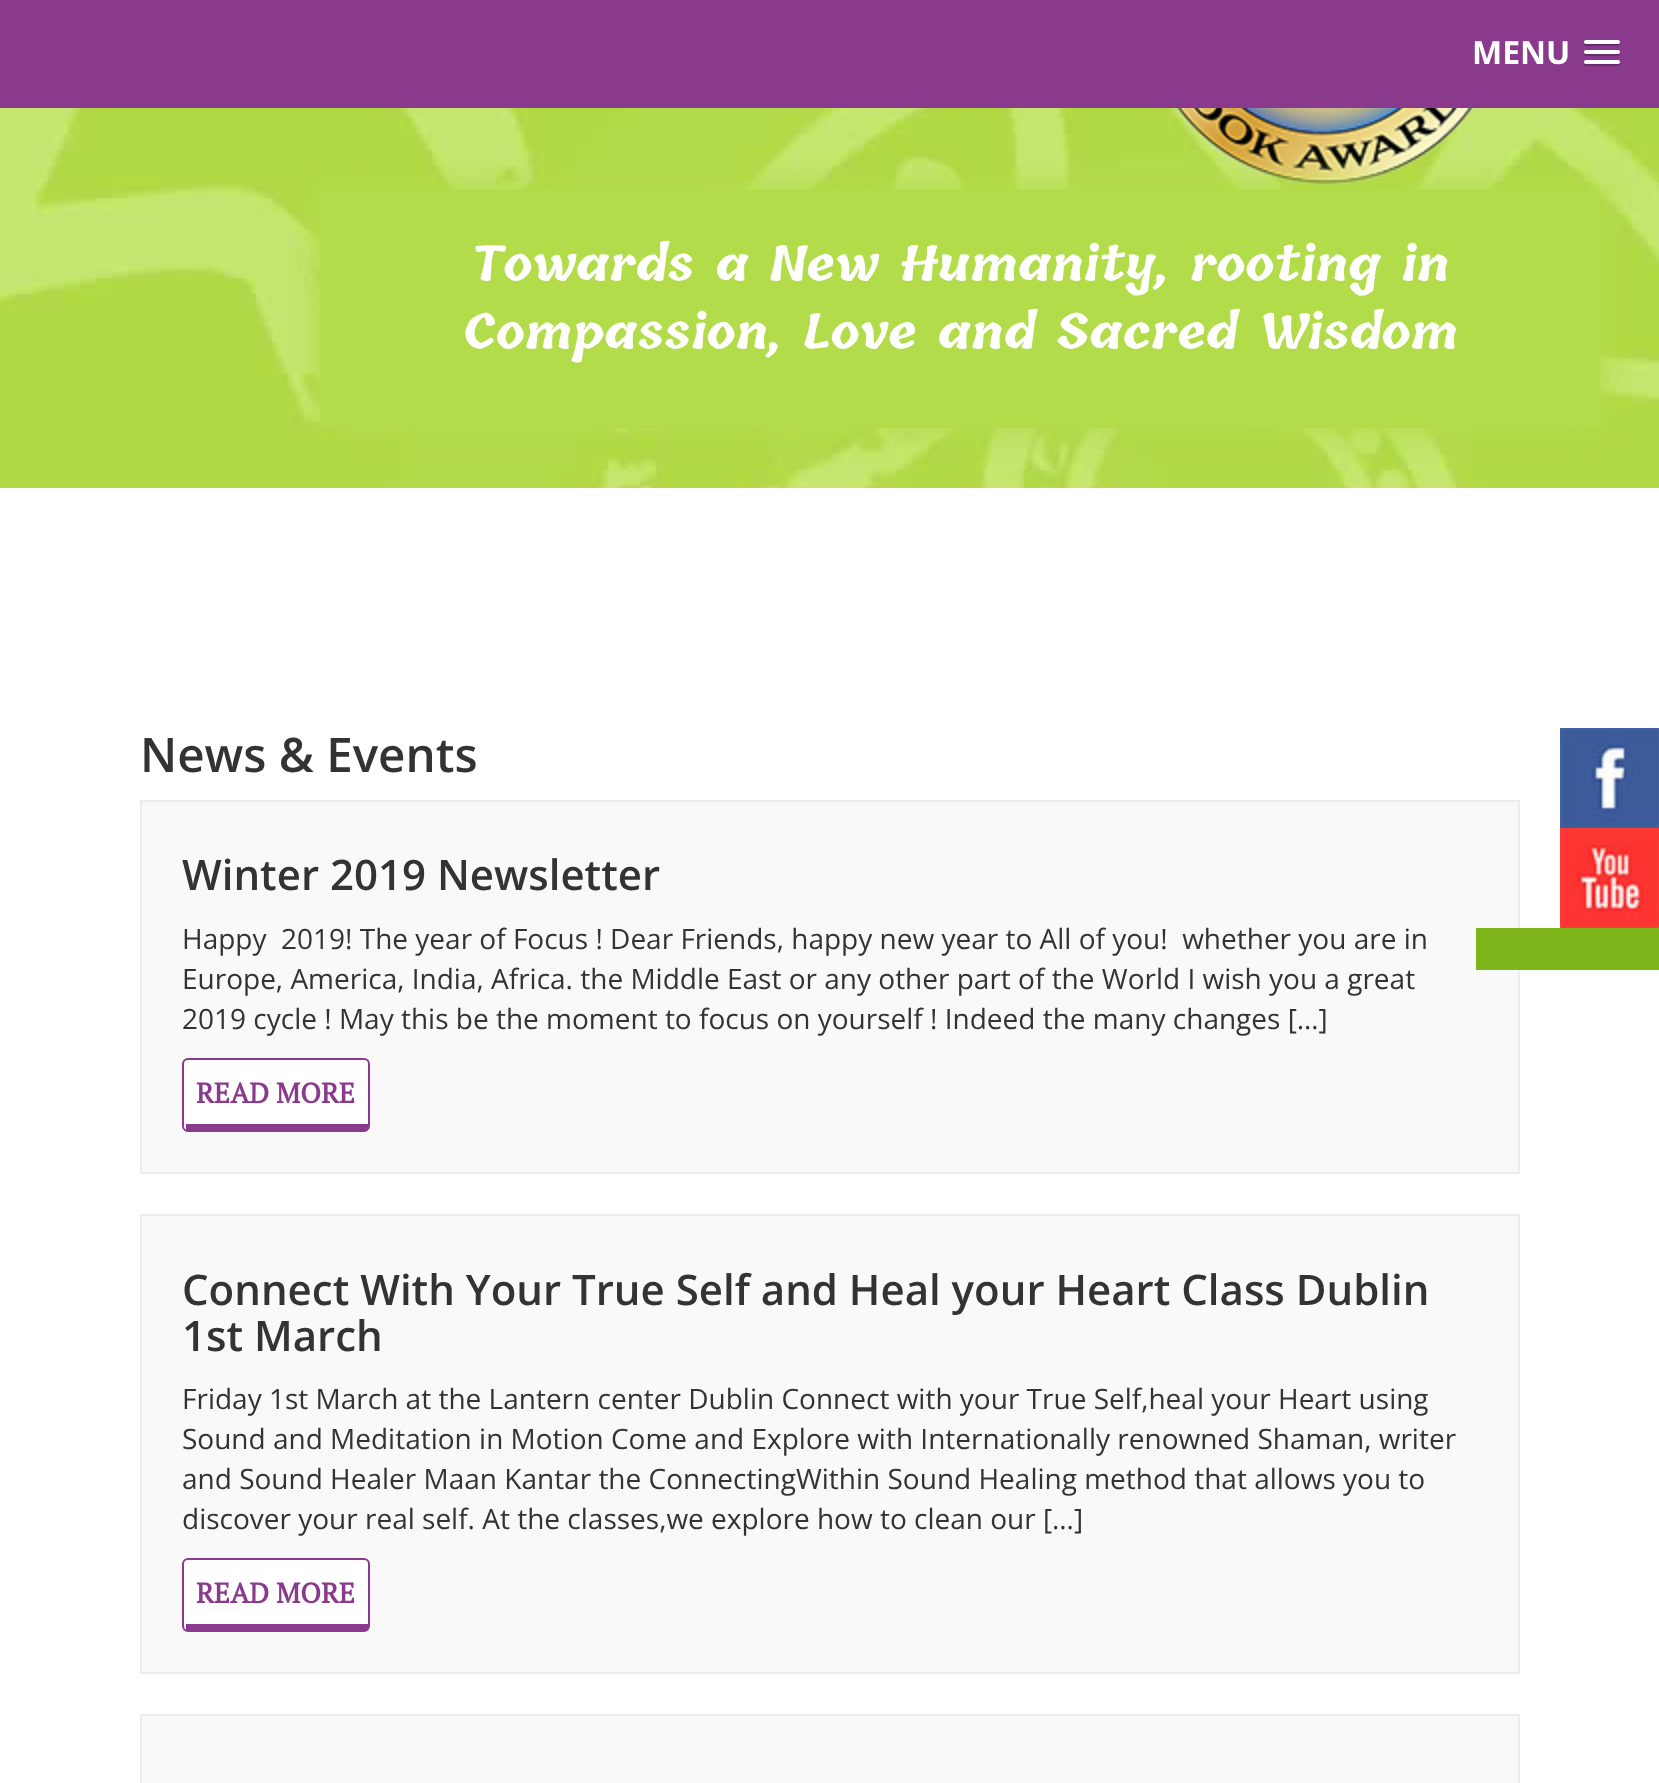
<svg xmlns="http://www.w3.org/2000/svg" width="1659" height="1783">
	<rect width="100%" height="100%" fill="#FFFFFF" />
	<image x="0" y="108" width="1659" height="380" href="assets/img1.png" />
	<rect x="0" y="0" width="1659" height="108" fill="#893A8D" />
	<text x="1472" y="64" font-family="Open Sans" font-size="32" font-weight="700" fill="#FFFFFF">MENU</text>
	<path d="M1584.5 43C1582 47 1591 46 1591.5 46H1612.5C1613 46 1622 47 1619.5 43C1619.5 43.5 1618.5 44 1618 44H1586C1585.5 44 1584.5 43.5 1584.5 43Z" fill="#672C6A" />
	<rect x="1584" y="40" width="36" height="4" rx="2" fill="#FFFFFF" />
	<path d="M1584.5 53C1582 57 1591 56 1591.5 56H1612.5C1613 56 1622 57 1619.5 53C1619.5 53.5 1618.5 54 1618 54H1586C1585.5 54 1584.5 53.5 1584.5 53Z" fill="#672C6A" />
	<rect x="1584" y="50" width="36" height="4" rx="2" fill="#FFFFFF" />
	<path d="M1584.5 63C1582 67 1591 66 1591.5 66H1612.5C1613 66 1622 67 1619.5 63C1619.5 63.5 1618.5 64 1618 64H1586C1585.5 64 1584.5 63.5 1584.5 63Z" fill="#672C6A" />
	<rect x="1584" y="60" width="36" height="4" rx="2" fill="#FFFFFF" />
	<image x="1174" y="108" width="302" height="78" href="assets/img2.png" />
	<rect x="316" y="186" width="1288" height="246" rx="10" fill="#B3DC4A" filter="blur(15px)" />
	<rect x="320" y="190" width="1280" height="238" rx="6" fill="#B3DC4A" />
	<g font-family="Tillana" font-size="48" font-weight="700" fill="#FFFFFF">
		<text x="471" y="281">Towards a New Humanity, rooting in</text>
		<text x="463" y="349">Compassion, Love and Sacred Wisdom</text>
	</g>
	<text x="140" y="772" font-family="Open Sans" font-size="47.5" font-weight="600" fill="#333333">News &amp; Events</text>
	<rect x="141" y="801" width="1378" height="372" fill="#F9F9F9" stroke="#EDEDED" stroke-width="2" />
	<text x="182" y="890" font-family="Open Sans" font-size="42" font-weight="600" fill="#333333">Winter 2019 Newsletter</text>
	<g font-family="Open Sans" font-size="28" fill="#333333">
		<text x="182" y="949" xml:space="preserve">Happy  2019! The year of Focus ! Dear Friends, happy new year to All of you!  whether you are in</text>
		<text x="182" y="989">Europe, America, India, Africa. the Middle East or any other part of the World I wish you a great</text>
		<text x="182" y="1029">2019 cycle ! May this be the moment to focus on yourself ! Indeed the many changes […]</text>
	</g>
	<path d="M188 1060H364C366 1060 368 1062 368 1064V1124H184V1064C184 1062 186 1060 188 1060Z" fill="#FFFFFF" />
	<rect x="183" y="1059" width="186" height="72" rx="5" fill="none" stroke="#893A8D" stroke-width="2" />
	<rect x="186" y="1124" width="182" height="6" fill="#893A8D" />
	<text x="196" y="1103" font-family="PT Serif" font-size="28" font-weight="700" fill="#893A8D">READ MORE</text>
	<rect x="141" y="1215" width="1378" height="458" fill="#F9F9F9" stroke="#EDEDED" stroke-width="2" />
	<g font-family="Open Sans" font-size="42" font-weight="600" fill="#333333">
		<text x="182" y="1305">Connect With Your True Self and Heal your Heart Class Dublin</text>
		<text x="182" y="1351">1st March</text>
	</g>
	<g font-family="Open Sans" font-size="28" fill="#333333">
		<text x="182" y="1409">Friday 1st March at the Lantern center Dublin Connect with your True Self,heal your Heart using</text>
		<text x="182" y="1449">Sound and Meditation in Motion Come and Explore with Internationally renowned Shaman, writer</text>
		<text x="182" y="1489">and Sound Healer Maan Kantar the ConnectingWithin Sound Healing method that allows you to</text>
		<text x="182" y="1529">discover your real self. At the classes,we explore how to clean our […]</text>
	</g>
	<path d="M188 1560H364C366 1560 368 1562 368 1564V1624H184V1564C184 1562 186 1560 188 1560Z" fill="#FFFFFF" />
	<rect x="183" y="1559" width="186" height="72" rx="5" fill="none" stroke="#893A8D" stroke-width="2" />
	<rect x="186" y="1624" width="182" height="6" fill="#893A8D" />
	<text x="196" y="1603" font-family="PT Serif" font-size="28" font-weight="700" fill="#893A8D">READ MORE</text>
	<rect x="141" y="1715" width="1378" height="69" fill="#F9F9F9" stroke="#EDEDED" stroke-width="2" />
	<image x="1560" y="728" width="99" height="100" href="assets/img3.png" />
	<image x="1560" y="828" width="99" height="100" href="assets/img4.png" />
	<rect x="1476" y="928" width="183" height="42" fill="#7FB61C" />
</svg>
